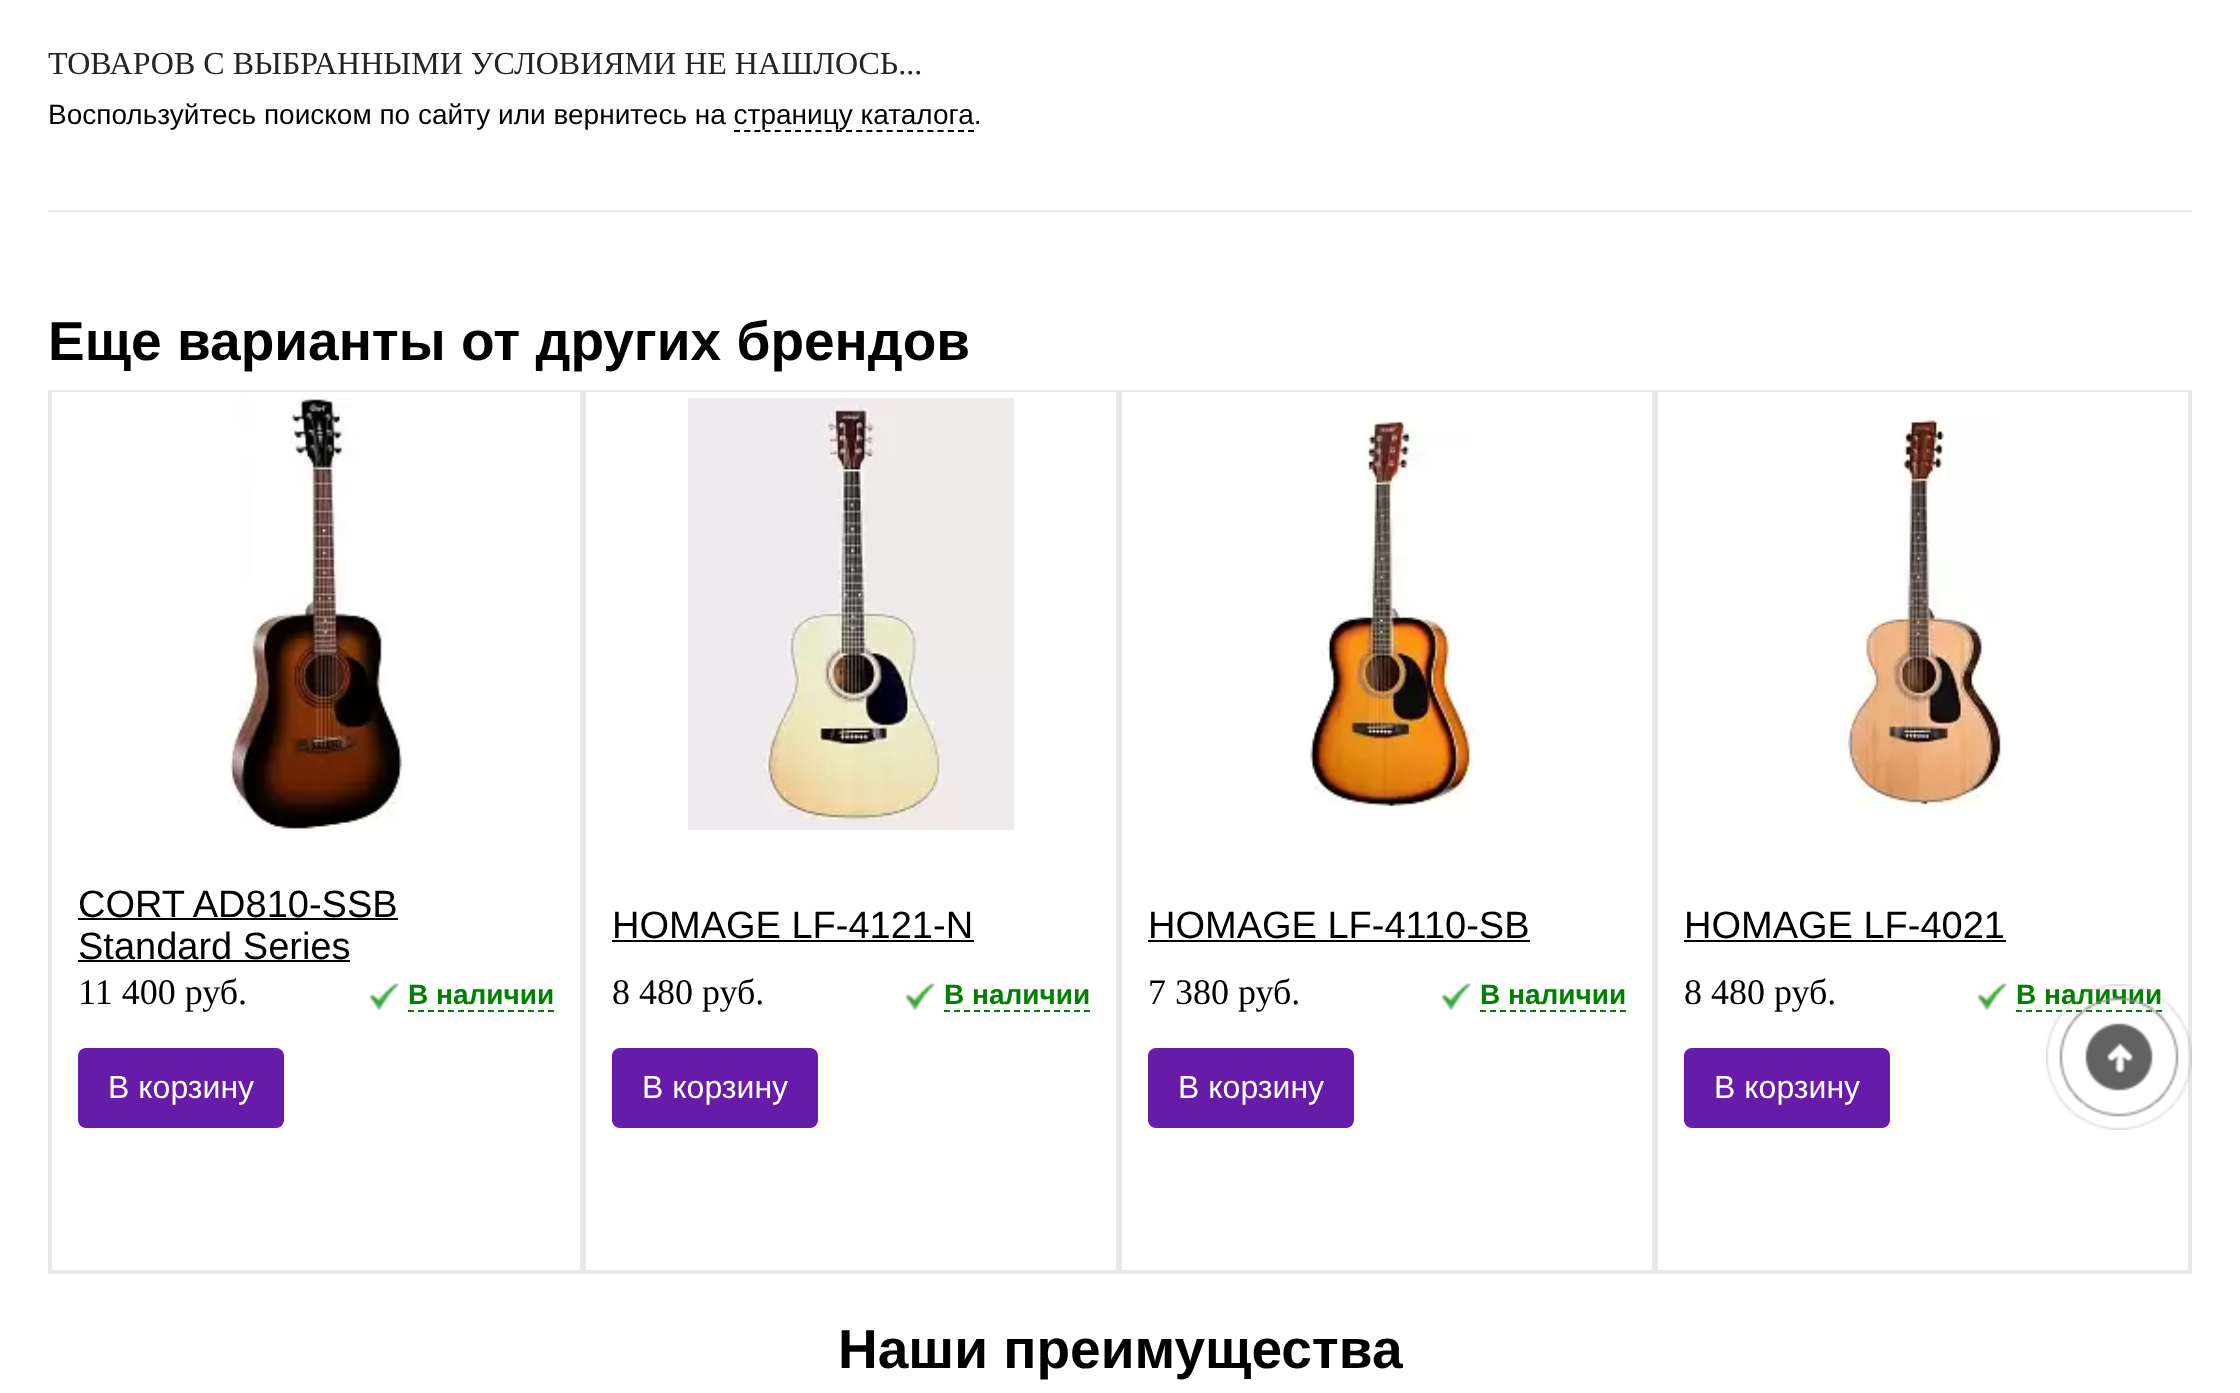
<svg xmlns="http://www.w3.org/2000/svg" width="2240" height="1393">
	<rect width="100%" height="100%" fill="#FFFFFF" />
	<rect x="48" y="210" width="2144" height="2" fill="#E7E8EA" />
	<text x="48" y="74" font-family="Liberation Serif" font-size="32" fill="#212529">ТОВАРОВ С ВЫБРАННЫМИ УСЛОВИЯМИ НЕ НАШЛОСЬ...</text>
	<text x="48" y="124" font-family="Liberation Sans" font-size="28" fill="#000000">Воспользуйтесь поиском по сайту или вернитесь на страницу каталога.</text>
	<path d="M734 131H974" fill="none" stroke="#000000" stroke-width="2" stroke-dasharray="6 4.18" />
	<text x="48" y="360" font-family="Liberation Sans" font-size="55" font-weight="700" fill="#000000">Еще варианты от других брендов</text>
	<rect x="582" y="390" width="2" height="884" fill="#E7E8EA" />
	<rect x="48" y="1272" width="536" height="2" fill="#E7E8EA" />
	<rect x="48" y="390" width="2" height="884" fill="#E7E8EA" />
	<rect x="51" y="391" width="530" height="880" fill="none" stroke="#E7E8EA" stroke-width="2" />
	<image x="226" y="398" width="177" height="432" href="assets/img1.png" />
	<text x="78" y="917" font-family="Liberation Sans" font-size="38" fill="#000000">CORT AD810-SSB</text>
	<rect x="78" y="918" width="320" height="2" fill="#000000" />
	<text x="78" y="959" font-family="Liberation Sans" font-size="38" fill="#000000">Standard Series</text>
	<rect x="78" y="960" width="272" height="2" fill="#000000" />
	<text x="78" y="1004" font-family="Liberation Serif" font-size="36" fill="#000000">11 400 руб.</text>
	<image x="369" y="983" width="30" height="28" href="assets/img2.png" />
	<text x="408" y="1004" font-family="Liberation Sans" font-size="28" font-weight="700" fill="#008000">В наличии</text>
	<path d="M408 1011H554" fill="none" stroke="#008000" stroke-width="2" stroke-dasharray="6 4" />
	<rect x="78" y="1048" width="206" height="80" rx="8" fill="#671BA9" />
	<text x="108" y="1098" font-family="Liberation Sans" font-size="32" fill="#FFFFFF">В корзину</text>
	<rect x="1118" y="390" width="2" height="884" fill="#E7E8EA" />
	<rect x="584" y="1272" width="536" height="2" fill="#E7E8EA" />
	<rect x="585" y="391" width="532" height="880" fill="none" stroke="#E7E8EA" stroke-width="2" />
	<image x="688" y="398" width="326" height="432" href="assets/img3.png" />
	<text x="612" y="938" font-family="Liberation Sans" font-size="38" fill="#000000">HOMAGE LF-4121-N</text>
	<rect x="612" y="940" width="362" height="2" fill="#000000" />
	<text x="612" y="1004" font-family="Liberation Serif" font-size="36" fill="#000000">8 480 руб.</text>
	<image x="905" y="983" width="30" height="28" href="assets/img2.png" />
	<text x="944" y="1004" font-family="Liberation Sans" font-size="28" font-weight="700" fill="#008000">В наличии</text>
	<path d="M944 1011H1090" fill="none" stroke="#008000" stroke-width="2" stroke-dasharray="6 4" />
	<rect x="612" y="1048" width="206" height="80" rx="8" fill="#671BA9" />
	<text x="642" y="1098" font-family="Liberation Sans" font-size="32" fill="#FFFFFF">В корзину</text>
	<rect x="1654" y="390" width="2" height="884" fill="#E7E8EA" />
	<rect x="1120" y="1272" width="536" height="2" fill="#E7E8EA" />
	<rect x="1121" y="391" width="532" height="880" fill="none" stroke="#E7E8EA" stroke-width="2" />
	<image x="1307" y="420" width="173" height="391" href="assets/img4.png" />
	<text x="1148" y="938" font-family="Liberation Sans" font-size="38" fill="#000000">HOMAGE LF-4110-SB</text>
	<rect x="1148" y="940" width="382" height="2" fill="#000000" />
	<text x="1148" y="1004" font-family="Liberation Serif" font-size="36" fill="#000000">7 380 руб.</text>
	<image x="1441" y="983" width="30" height="28" href="assets/img2.png" />
	<text x="1480" y="1004" font-family="Liberation Sans" font-size="28" font-weight="700" fill="#008000">В наличии</text>
	<path d="M1480 1011H1626" fill="none" stroke="#008000" stroke-width="2" stroke-dasharray="6 4" />
	<rect x="1148" y="1048" width="206" height="80" rx="8" fill="#671BA9" />
	<text x="1178" y="1098" font-family="Liberation Sans" font-size="32" fill="#FFFFFF">В корзину</text>
	<rect x="2190" y="390" width="2" height="884" fill="#E7E8EA" />
	<rect x="1656" y="1272" width="536" height="2" fill="#E7E8EA" />
	<rect x="1657" y="391" width="532" height="880" fill="none" stroke="#E7E8EA" stroke-width="2" />
	<image x="1844" y="413" width="158" height="394" href="assets/img5.png" />
	<text x="1684" y="938" font-family="Liberation Sans" font-size="38" fill="#000000">HOMAGE LF-4021</text>
	<rect x="1684" y="940" width="322" height="2" fill="#000000" />
	<text x="1684" y="1004" font-family="Liberation Serif" font-size="36" fill="#000000">8 480 руб.</text>
	<image x="1977" y="983" width="30" height="28" href="assets/img2.png" />
	<text x="2016" y="1004" font-family="Liberation Sans" font-size="28" font-weight="700" fill="#008000">В наличии</text>
	<path d="M2016 1011H2162" fill="none" stroke="#008000" stroke-width="2" stroke-dasharray="6 4" />
	<rect x="1684" y="1048" width="206" height="80" rx="8" fill="#671BA9" />
	<text x="1714" y="1098" font-family="Liberation Sans" font-size="32" fill="#FFFFFF">В корзину</text>
	<image x="2046" y="984" width="146" height="146" href="assets/img6.png" />
	<text x="838" y="1368" font-family="Liberation Sans" font-size="55" font-weight="700" fill="#000000">Наши преимущества</text>
</svg>
